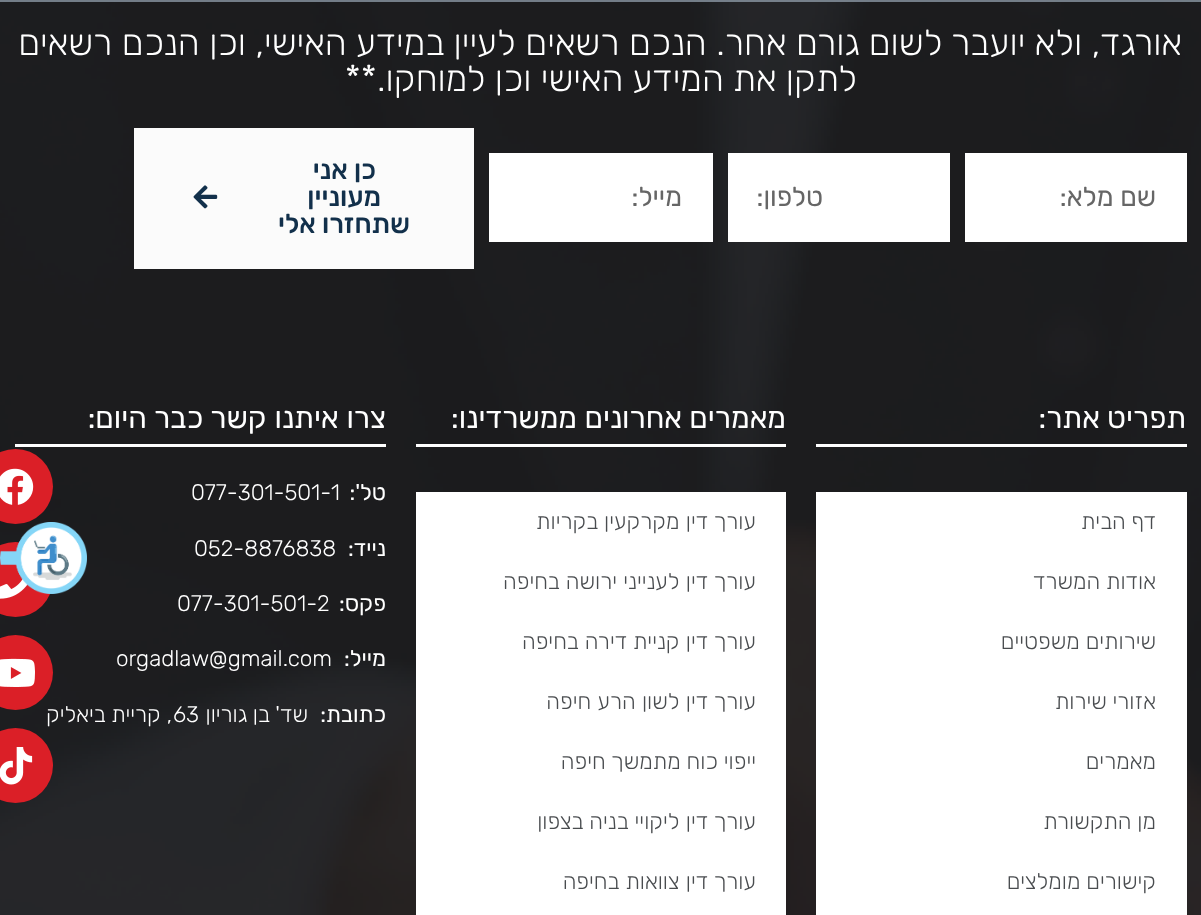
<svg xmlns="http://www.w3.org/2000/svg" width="1201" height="915">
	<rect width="100%" height="100%" fill="#FFFFFF" />
	<image x="0" y="0" width="1201" height="915" href="assets/img1.png" />
	<rect x="0" y="0" width="1201" height="2" fill="#95A3B1" fill-opacity="0.72" />
	<g font-family="Rubik" font-size="36" font-weight="300" direction="rtl" fill="#FFFFFF">
		<text x="1182" y="55" word-spacing="0.25">אורגד, ולא יועבר לשום גורם אחר. הנכם רשאים לעיין במידע האישי, וכן הנכם רשאים</text>
		<text x="857" y="91">לתקן את המידע האישי וכן למוחקו.**</text>
	</g>
	<rect x="965" y="153" width="222" height="89" fill="#FFFFFF" />
	<text x="1156" y="206" font-family="Rubik" font-size="27" direction="rtl" fill="#666666">שם מלא:</text>
	<rect x="728" y="153" width="222" height="89" fill="#FFFFFF" />
	<text x="823" y="206" font-family="Rubik" font-size="27" direction="rtl" fill="#666666">טלפון:</text>
	<rect x="489" y="153" width="224" height="89" fill="#FFFFFF" />
	<text x="682" y="206" font-family="Rubik" font-size="27" direction="rtl" fill="#666666">מייל:</text>
	<rect x="134" y="128" width="340" height="141" fill="#FBFBFB" />
	<g font-family="Rubik" font-size="27" font-weight="500" direction="rtl" fill="#12304B">
		<text x="376" y="179">כן אני</text>
		<text x="381" y="206">מעוניין</text>
		<text x="410" y="233">שתחזרו אלי</text>
	</g>
	<image x="193" y="185" width="25" height="24" href="assets/img2.png" />
	<rect x="816" y="444" width="371" height="3" fill="#FFFFFF" />
	<text x="1186" y="428" font-family="Rubik" font-size="30" direction="rtl" fill="#FFFFFF">תפריט אתר:</text>
	<rect x="816" y="492" width="371" height="423" fill="#FFFFFF" />
	<g font-family="Rubik" font-size="22.5" font-weight="300" direction="rtl" fill="#494C4F">
		<text x="1156" y="529">דף הבית</text>
		<text x="1156" y="589">אודות המשרד</text>
		<text x="1156" y="649">שירותים משפטיים</text>
		<text x="1156" y="709">אזורי שירות</text>
		<text x="1156" y="769">מאמרים</text>
		<text x="1156" y="829">מן התקשורת</text>
		<text x="1156" y="889">קישורים מומלצים</text>
	</g>
	<rect x="416" y="444" width="370" height="3" fill="#FFFFFF" />
	<text x="786" y="428" font-family="Rubik" font-size="30" direction="rtl" fill="#FFFFFF">מאמרים אחרונים ממשרדינו:</text>
	<rect x="416" y="492" width="370" height="423" fill="#FFFFFF" />
	<g font-family="Rubik" font-size="22.5" font-weight="300" direction="rtl" fill="#494C4F">
		<text x="756" y="529" word-spacing="0.5">עורך דין מקרקעין בקריות</text>
		<text x="756" y="589" word-spacing="0.5">עורך דין לענייני ירושה בחיפה</text>
		<text x="756" y="649" word-spacing="0.5">עורך דין קניית דירה בחיפה</text>
		<text x="756" y="709" word-spacing="0.5">עורך דין לשון הרע חיפה</text>
		<text x="756" y="769">ייפוי כוח מתמשך חיפה</text>
		<text x="756" y="829" word-spacing="0.5">עורך דין ליקויי בניה בצפון</text>
		<text x="756" y="889" word-spacing="0.5">עורך דין צוואות בחיפה</text>
	</g>
	<rect x="15" y="444" width="371" height="3" fill="#FFFFFF" />
	<text x="386" y="428" word-spacing="0.5" font-family="Rubik" font-size="30" direction="rtl" fill="#FFFFFF">צרו איתנו קשר כבר היום:</text>
	<text x="386" y="500" font-family="Rubik" font-size="22.5" direction="rtl" fill="#FFFFFF">טל':</text>
	<text x="191" y="500" font-family="Rubik" font-size="22.5" font-weight="300" fill="#FFFFFF">077-301-501-1</text>
	<text x="386" y="556" font-family="Rubik" font-size="22.5" direction="rtl" fill="#FFFFFF">נייד:</text>
	<text x="194" y="556" font-family="Rubik" font-size="22.5" font-weight="300" fill="#FFFFFF">052-8876838</text>
	<text x="386" y="611" font-family="Rubik" font-size="22.5" direction="rtl" fill="#FFFFFF">פקס:</text>
	<text x="177" y="611" font-family="Rubik" font-size="22.5" font-weight="300" fill="#FFFFFF">077-301-501-2</text>
	<text x="386" y="666" font-family="Rubik" font-size="22.5" direction="rtl" fill="#FFFFFF">מייל:</text>
	<text x="116" y="666" font-family="Rubik" font-size="22.5" font-weight="300" fill="#FFFFFF">orgadlaw@gmail.com</text>
	<text x="386" y="722" font-family="Rubik" font-size="22.5" direction="rtl" fill="#FFFFFF">כתובת:</text>
	<text x="308" y="722" font-family="Rubik" font-size="22.5" font-weight="300" direction="rtl" fill="#FFFFFF">שד' בן גוריון</text>
	<text x="173" y="722" font-family="Rubik" font-size="22.5" font-weight="300" fill="#FFFFFF">63</text>
	<text x="172" y="722" font-family="Rubik" font-size="22.5" font-weight="300" direction="rtl" fill="#FFFFFF">, קריית ביאליק</text>
	<circle cx="15.5" cy="486.5" r="37.5" fill="#DB1F27" />
	<image x="0" y="468" width="34" height="37" href="assets/img3.png" />
	<circle cx="15.5" cy="579.5" r="37.5" fill="#DB1F27" />
	<image x="0" y="578" width="28" height="21" href="assets/img4.png" />
	<circle cx="15.5" cy="672.5" r="37.5" fill="#DB1F27" />
	<image x="0" y="658" width="35" height="29" href="assets/img5.png" />
	<circle cx="15.5" cy="765.5" r="37.5" fill="#DB1F27" />
	<image x="0" y="747" width="33" height="38" href="assets/img6.png" />
	<image x="0" y="522" width="87" height="72" href="assets/img7.png" />
</svg>
